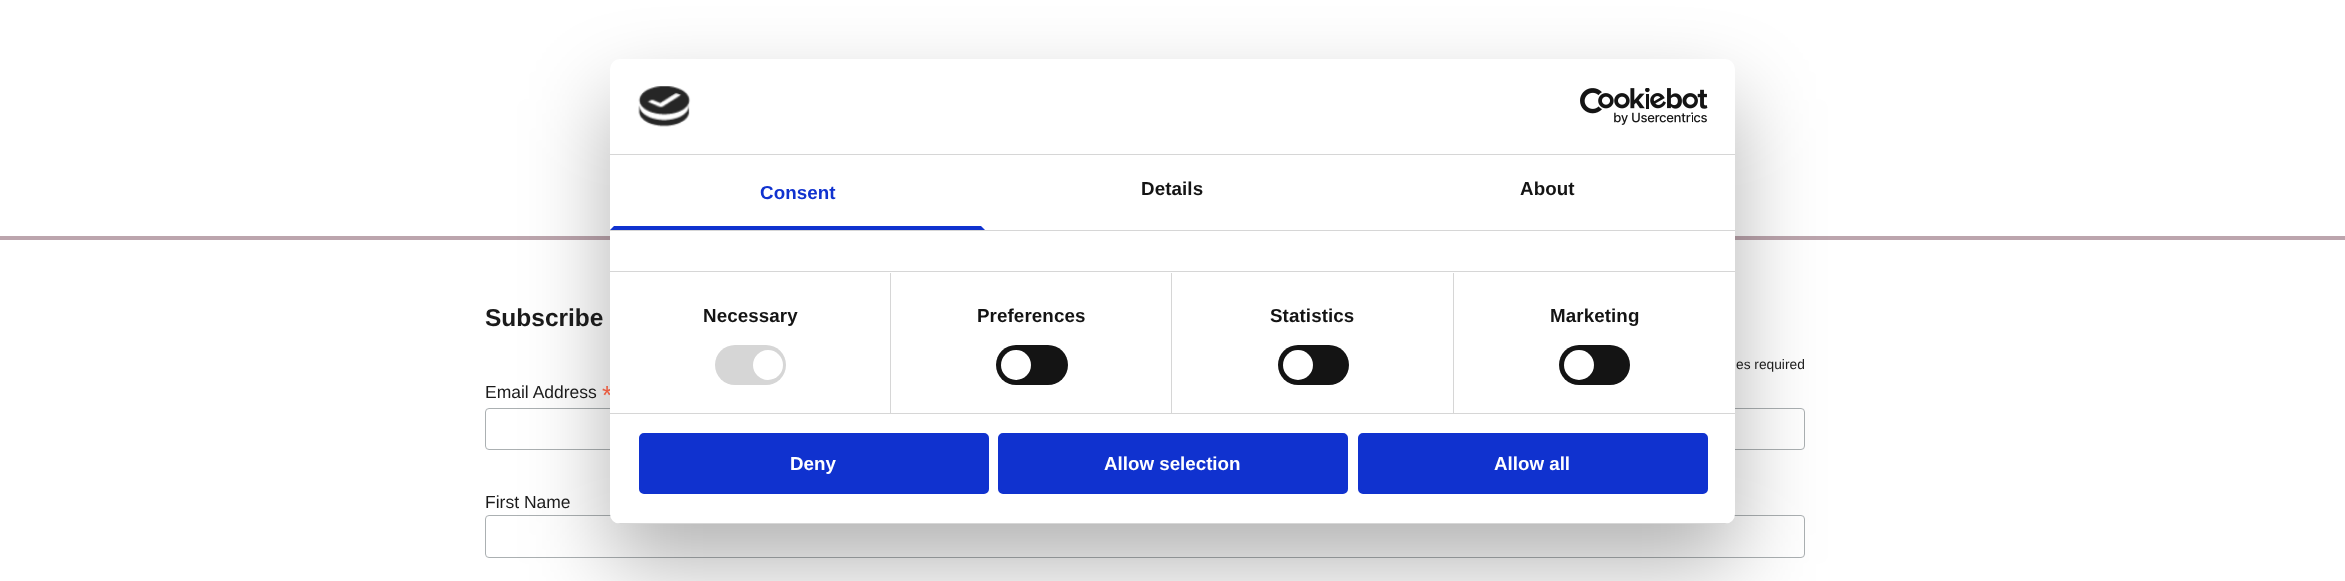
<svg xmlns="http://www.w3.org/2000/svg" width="2345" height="581">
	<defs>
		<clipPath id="clip1"><rect x="610" y="59" width="1125" height="465" rx="10" /></clipPath>
	</defs>
	<rect width="100%" height="100%" fill="#FFFFFF" />
	<rect x="0" y="236" width="2345" height="4" fill="#BCA5AD" />
	<rect x="485.5" y="408.5" width="1319" height="41" rx="3.5" fill="none" stroke="#ABB0B2" />
	<rect x="485.5" y="515.5" width="1319" height="42" rx="3.5" fill="none" stroke="#ABB0B2" />
	<rect x="610" y="99" width="1125" height="465" rx="10" fill="#000000" fill-opacity="0.3" filter="blur(42.5px)" />
	<text x="602" y="404" font-family="Liberation Sans" font-size="26" fill="#E85C41">*</text>
	<rect x="610" y="59" width="1125" height="465" rx="10" fill="#FFFFFF" />
	<rect x="610" y="154" width="1125" height="1" fill="#D6D6D6" />
	<image x="638" y="86" width="53" height="41" href="assets/img1.png" />
	<image x="1580" y="88" width="128" height="37" href="assets/img2.png" />
	<rect x="610" y="230" width="1125" height="1" fill="#D6D6D6" />
	<path d="M985 230H610L614 226H981Z" fill="#1032CF" />
	<text x="760" y="199" font-family="Liberation Sans" font-size="18.75" font-weight="700" letter-spacing="0.1" fill="#1032CF">Consent</text>
	<g font-family="Liberation Sans" font-size="18.75" font-weight="700" letter-spacing="0.1" fill="#141414">
		<text x="1141" y="195">Details</text>
		<text x="1520" y="195">About</text>
	</g>
	<rect x="610" y="271" width="1125" height="1" fill="#D6D6D6" />
	<rect x="610" y="413" width="1125" height="1" fill="#D6D6D6" />
	<rect x="890" y="273" width="1" height="140" fill="#D6D6D6" />
	<text x="703" y="322" font-family="Liberation Sans" font-size="18.75" font-weight="700" letter-spacing="0.1" fill="#141414">Necessary</text>
	<rect x="715" y="345" width="71" height="40" rx="20" fill="#D6D6D6" />
	<circle cx="768" cy="365" r="15" fill="#FFFFFF" />
	<rect x="1171" y="273" width="1" height="140" fill="#D6D6D6" />
	<text x="977" y="322" font-family="Liberation Sans" font-size="18.75" font-weight="700" letter-spacing="0.1" fill="#141414">Preferences</text>
	<rect x="996" y="345" width="72" height="40" rx="20" fill="#141414" />
	<circle cx="1016" cy="365" r="15" fill="#FFFFFF" />
	<rect x="1453" y="273" width="1" height="140" fill="#D6D6D6" />
	<text x="1270" y="322" font-family="Liberation Sans" font-size="18.75" font-weight="700" letter-spacing="0.1" fill="#141414">Statistics</text>
	<rect x="1278" y="345" width="71" height="40" rx="20" fill="#141414" />
	<circle cx="1298" cy="365" r="15" fill="#FFFFFF" />
	<text x="1550" y="322" font-family="Liberation Sans" font-size="18.75" font-weight="700" letter-spacing="0.1" fill="#141414">Marketing</text>
	<rect x="1559" y="345" width="71" height="40" rx="20" fill="#141414" />
	<circle cx="1579" cy="365" r="15" fill="#FFFFFF" />
	<g clip-path="url(#clip1)">
		<rect x="610" y="523" width="1125" height="1" fill="#D6D6D6" />
	</g>
	<rect x="640.5" y="434.5" width="347" height="58" rx="3.5" fill="#1032CF" stroke="#1032CF" stroke-width="3" />
	<text x="790" y="470" font-family="Liberation Sans" font-size="18.75" font-weight="700" fill="#FFFFFF">Deny</text>
	<rect x="999.5" y="434.5" width="347" height="58" rx="3.5" fill="#1032CF" stroke="#1032CF" stroke-width="3" />
	<text x="1104" y="470" font-family="Liberation Sans" font-size="18.75" font-weight="700" fill="#FFFFFF">Allow selection</text>
	<rect x="1359.5" y="434.5" width="347" height="58" rx="3.5" fill="#1032CF" stroke="#1032CF" stroke-width="3" />
	<text x="1494" y="470" font-family="Liberation Sans" font-size="18.75" font-weight="700" fill="#FFFFFF">Allow all</text>
	<text x="485" y="326" font-family="Liberation Sans" font-size="24.5" font-weight="700" fill="#1B1B1B">Subscribe</text>
	<text x="1736" y="369" font-family="Liberation Sans" font-size="13.75" fill="#1B1B1B">es required</text>
	<g font-family="Liberation Sans" font-size="17.5" fill="#1B1B1B">
		<text x="485" y="398">Email Address</text>
		<text x="485" y="508">First Name</text>
	</g>
</svg>
